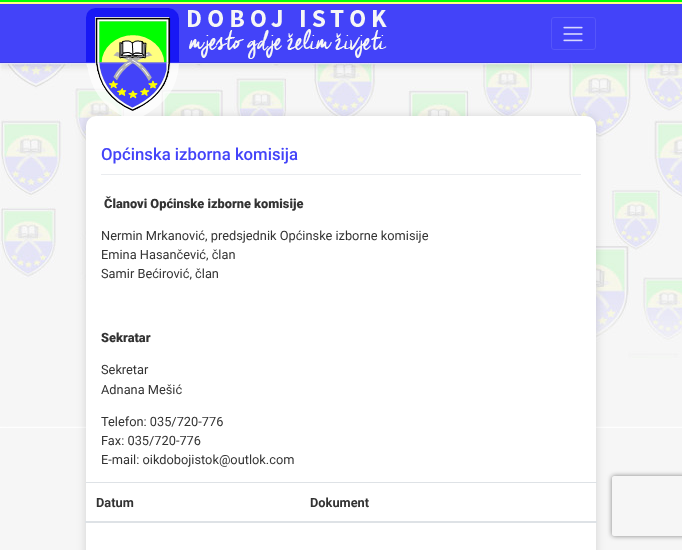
<svg xmlns="http://www.w3.org/2000/svg" width="682" height="550">
	<defs>
		<clipPath id="clip1"><path d="M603 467H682V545H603ZM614 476H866C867 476 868 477 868 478V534C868 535 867 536 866 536H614C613 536 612 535 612 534V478C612 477 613 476 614 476Z" clip-rule="evenodd" /></clipPath>
	</defs>
	<rect width="100%" height="100%" fill="#F6F6F6" />
	<rect x="0" y="0" width="682" height="2" fill="#00FF00" />
	<rect x="0" y="2" width="682" height="2" fill="#FFFF7F" />
	<rect x="0" y="4" width="682" height="58" fill="#4343F9" />
	<rect x="0" y="62" width="682" height="1" fill="#3C3CE0" />
	<image x="0" y="63" width="682" height="365" href="assets/img3.png" />
	<rect x="86" y="117" width="510" height="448" rx="10" fill="#000000" fill-opacity="0.15" filter="blur(5px)" />
	<image x="86" y="8" width="301" height="108" href="assets/img1.png" />
	<rect x="551.5" y="17.5" width="44" height="32" rx="2.5" fill="none" stroke="#5656FA" />
	<image x="563" y="26" width="20" height="16" href="assets/img2.png" />
	<rect x="86" y="116" width="510" height="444" rx="10" fill="#FFFFFF" />
	<rect x="101" y="174" width="480" height="1" fill="#EAECEF" />
	<text x="101" y="160" font-family="Roboto" font-size="16.75" font-weight="500" fill="#4343F9">Općinska izborna komisija</text>
	<text x="104" y="208" font-family="Roboto" font-size="12.8" font-weight="900" fill="#333333">Članovi Općinske izborne komisije</text>
	<g font-family="Roboto" font-size="12.8" fill="#333333">
		<text x="101" y="240">Nermin Mrkanović, predsjednik Općinske izborne komisije</text>
		<text x="101" y="259">Emina Hasančević, član</text>
		<text x="101" y="278">Samir Bećirović, član</text>
	</g>
	<text x="101" y="342" font-family="Roboto" font-size="12.8" font-weight="900" fill="#333333">Sekratar</text>
	<g font-family="Roboto" font-size="12.8" fill="#333333">
		<text x="101" y="374">Sekretar</text>
		<text x="101" y="394">Adnana Mešić</text>
		<text x="101" y="426">Telefon: 035/720-776</text>
		<text x="101" y="445">Fax: 035/720-776</text>
		<text x="101" y="464">E-mail: oikdobojistok@outlok.com</text>
	</g>
	<text x="96" y="507" font-family="Roboto" font-size="12.8" font-weight="700" fill="#333333">Datum</text>
	<rect x="86" y="482" width="511" height="1" fill="#DEE2E6" />
	<rect x="85" y="521" width="512" height="2" fill="#DEE2E6" />
	<text x="310" y="507" font-family="Roboto" font-size="12.8" font-weight="700" fill="#333333">Dokument</text>
	<g clip-path="url(#clip1)">
		<rect x="612" y="476" width="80" height="60" rx="2" fill="#808080" filter="blur(2.5px)" />
	</g>
</svg>
